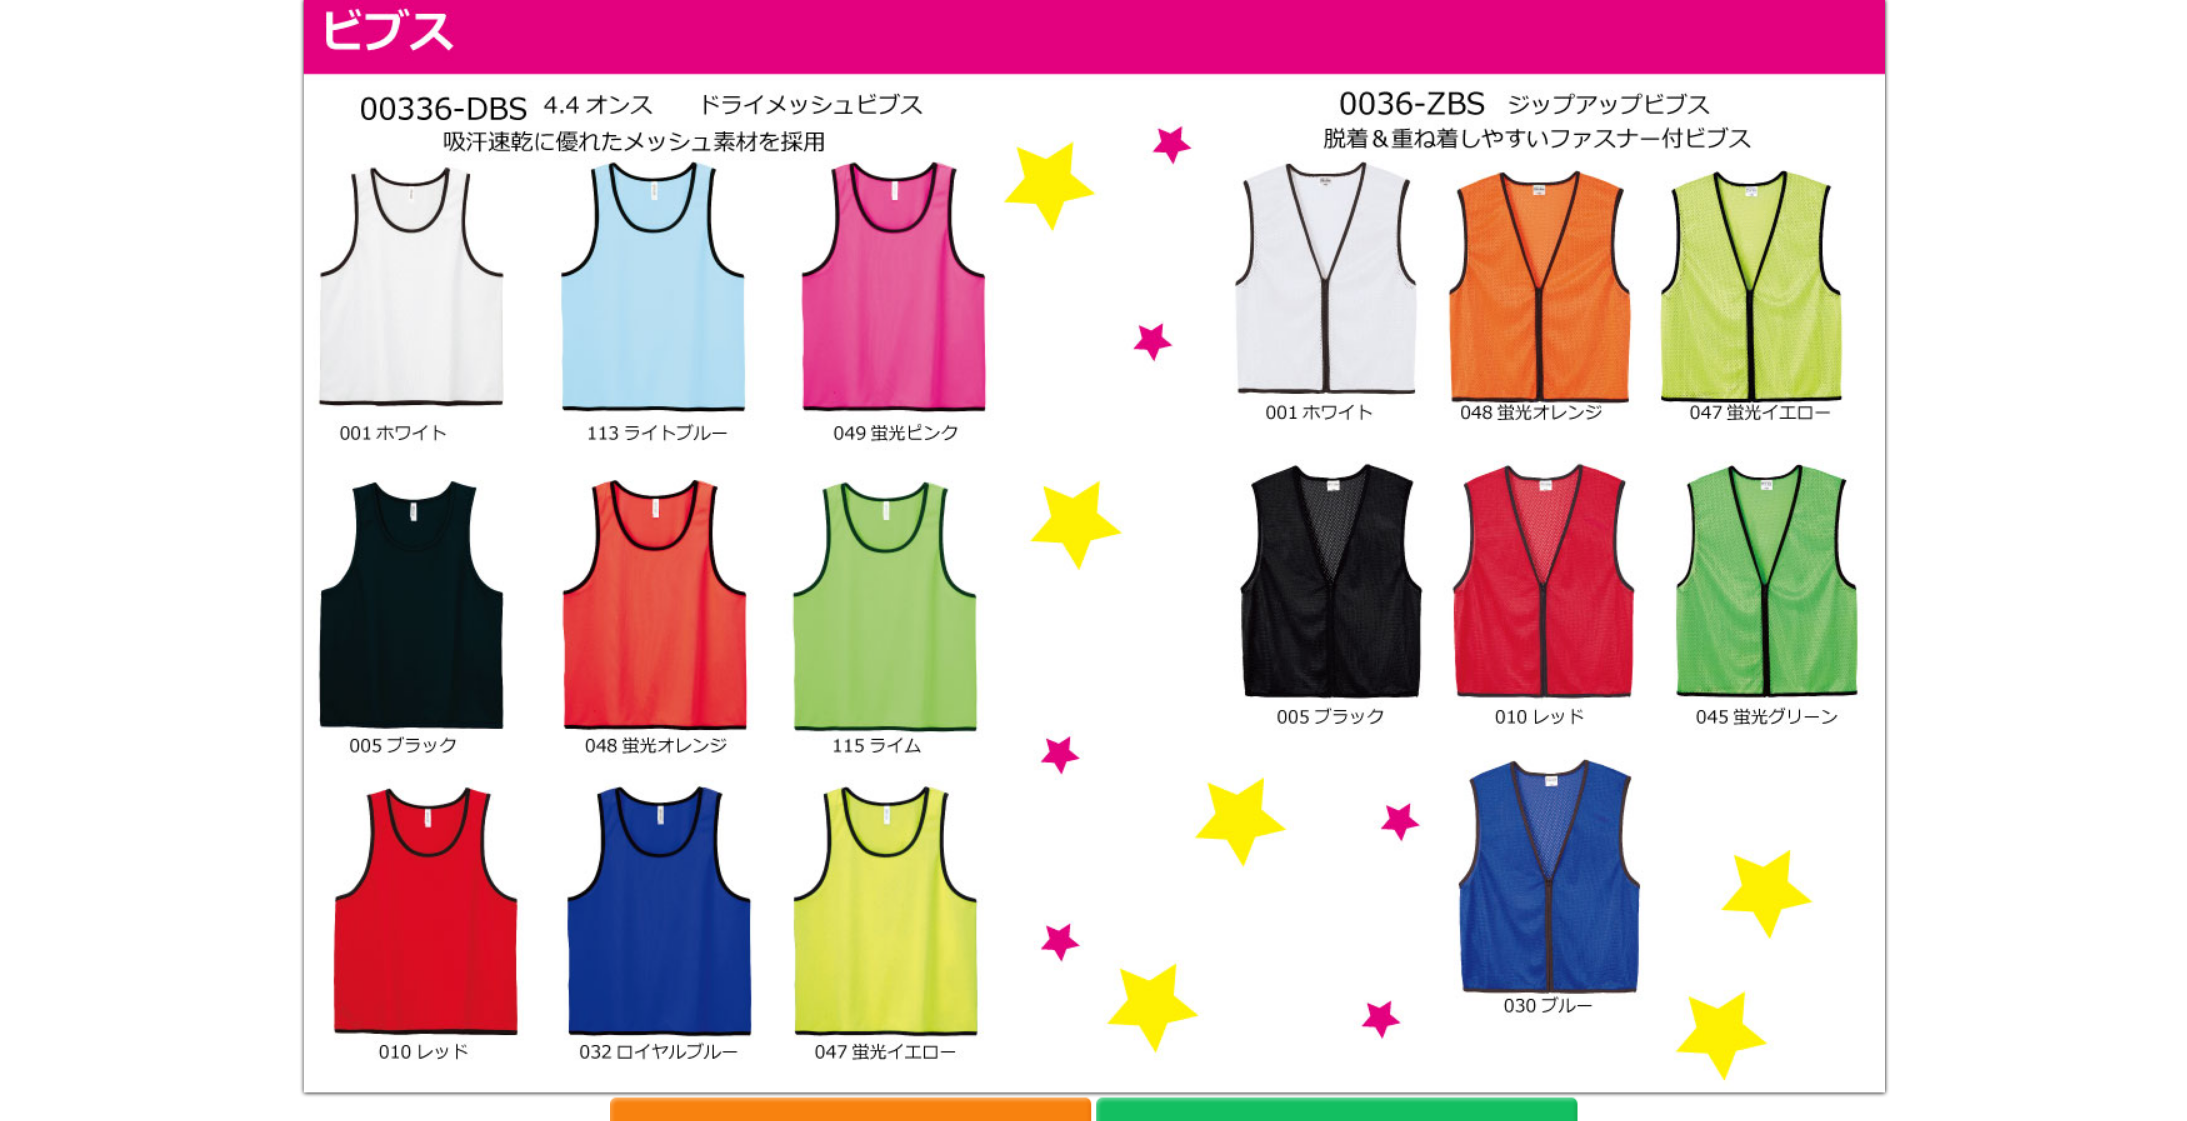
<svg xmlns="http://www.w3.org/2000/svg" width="2187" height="1121">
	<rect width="100%" height="100%" fill="#FFFFFF" />
	<rect x="304" y="0" width="1581" height="1093" fill="#000000" filter="blur(2px)" />
	<image x="303" y="0" width="1582" height="1093" href="assets/img1.png" />
	<image x="610" y="1097" width="482" height="24" href="assets/img2.png" />
	<image x="1096" y="1097" width="482" height="24" href="assets/img3.png" />
</svg>
